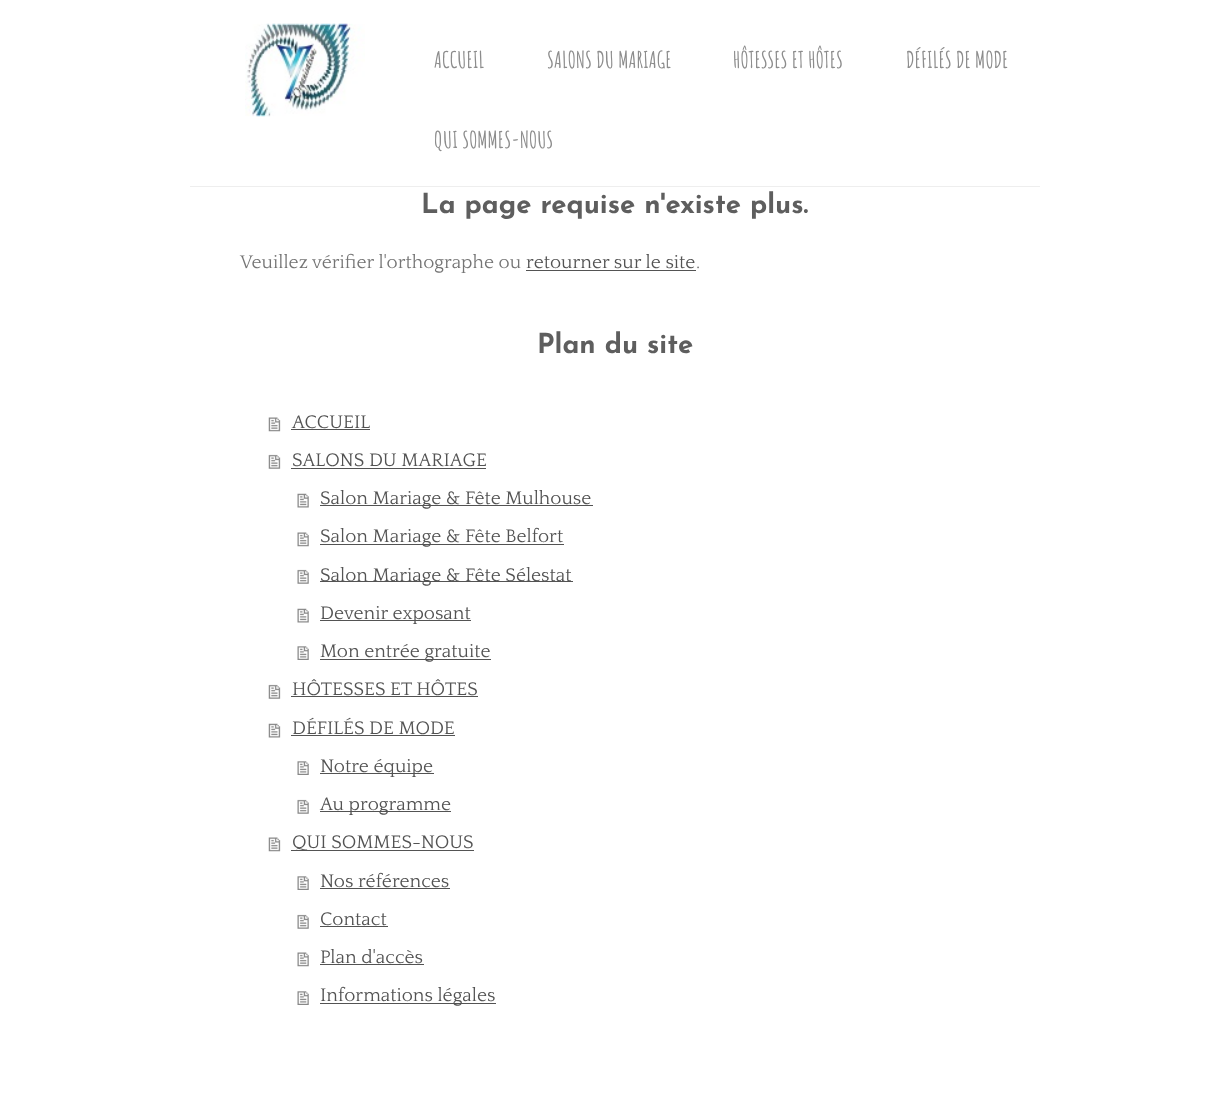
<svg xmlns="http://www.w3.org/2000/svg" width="1230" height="1102">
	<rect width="100%" height="100%" fill="#FFFFFF" />
	<image x="245" y="23" width="120" height="94" href="assets/img1.png" />
	<g font-family="Amatic SC" font-size="22.75" font-weight="700" fill="#8C8C8C">
		<text x="434" y="68">ACCUEIL</text>
		<text x="547" y="68">SALONS DU MARIAGE</text>
		<text x="733" y="68">HÔTESSES ET HÔTES</text>
		<text x="906" y="68">DÉFILÉS DE MODE</text>
		<text x="434" y="148">QUI SOMMES-NOUS</text>
	</g>
	<rect x="190" y="186" width="850" height="1" fill="#EEEEEE" />
	<text x="421" y="213" font-family="Josefin Sans" font-size="27.6" font-weight="700" fill="#5E5E5E">La page requise n'existe plus.</text>
	<text x="240" y="268" font-family="Quattrocento" font-size="19.1" fill="#757575">Veuillez vérifier l'orthographe ou</text>
	<text x="526" y="268" font-family="Quattrocento" font-size="19.1" fill="#535353">retourner sur le site</text>
	<rect x="526" y="270" width="170" height="1" fill="#535353" />
	<text x="696" y="268" font-family="Quattrocento" font-size="19.1" fill="#757575">.</text>
	<text x="537" y="353" font-family="Josefin Sans" font-size="27.6" font-weight="700" fill="#5E5E5E">Plan du site</text>
	<image x="268" y="417" width="13" height="15" href="assets/img2.png" />
	<text x="292" y="428" font-family="Quattrocento" font-size="19.1" fill="#535353">ACCUEIL</text>
	<rect x="291" y="429" width="79" height="1" fill="#535353" />
	<image x="268" y="454" width="13" height="15" href="assets/img3.png" />
	<text x="292" y="466" font-family="Quattrocento" font-size="19.1" fill="#535353">SALONS DU MARIAGE</text>
	<rect x="291" y="468" width="195" height="1" fill="#535353" />
	<image x="297" y="493" width="12" height="15" href="assets/img4.png" />
	<rect x="320" y="505" width="273" height="1" fill="#535353" />
	<text x="320" y="504" font-family="Quattrocento" font-size="19.1" fill="#535353">Salon Mariage &amp; Fête Mulhouse</text>
	<image x="297" y="532" width="12" height="15" href="assets/img5.png" />
	<rect x="320" y="544" width="244" height="1" fill="#535353" />
	<text x="320" y="542" font-family="Quattrocento" font-size="19.1" fill="#535353">Salon Mariage &amp; Fête Belfort</text>
	<image x="297" y="569" width="12" height="15" href="assets/img6.png" />
	<rect x="320" y="581" width="253" height="1" fill="#535353" />
	<text x="320" y="581" font-family="Quattrocento" font-size="19.1" fill="#535353">Salon Mariage &amp; Fête Sélestat</text>
	<image x="297" y="608" width="12" height="15" href="assets/img4.png" />
	<rect x="320" y="620" width="151" height="1" fill="#535353" />
	<text x="320" y="619" font-family="Quattrocento" font-size="19.1" fill="#535353">Devenir exposant</text>
	<image x="297" y="646" width="12" height="14" href="assets/img7.png" />
	<rect x="320" y="659" width="171" height="1" fill="#535353" />
	<text x="320" y="657" font-family="Quattrocento" font-size="19.1" fill="#535353">Mon entrée gratuite</text>
	<image x="268" y="684" width="13" height="15" href="assets/img3.png" />
	<text x="292" y="695" font-family="Quattrocento" font-size="19.1" fill="#535353">HÔTESSES ET HÔTES</text>
	<rect x="291" y="696" width="187" height="1" fill="#535353" />
	<image x="268" y="723" width="13" height="15" href="assets/img8.png" />
	<text x="292" y="734" font-family="Quattrocento" font-size="19.1" fill="#535353">DÉFILÉS DE MODE</text>
	<rect x="291" y="735" width="164" height="1" fill="#535353" />
	<image x="297" y="761" width="12" height="14" href="assets/img7.png" />
	<rect x="320" y="773" width="114" height="1" fill="#535353" />
	<text x="320" y="772" font-family="Quattrocento" font-size="19.1" fill="#535353">Notre équipe</text>
	<image x="297" y="799" width="12" height="15" href="assets/img6.png" />
	<rect x="320" y="811" width="131" height="1" fill="#535353" />
	<text x="320" y="810" font-family="Quattrocento" font-size="19.1" fill="#535353">Au programme</text>
	<image x="268" y="837" width="13" height="15" href="assets/img2.png" />
	<rect x="291" y="850" width="183" height="1" fill="#535353" />
	<text x="292" y="848" font-family="Quattrocento" font-size="19.1" fill="#535353">QUI SOMMES-NOUS</text>
	<image x="297" y="876" width="12" height="14" href="assets/img7.png" />
	<text x="320" y="887" font-family="Quattrocento" font-size="19.1" fill="#535353">Nos références</text>
	<rect x="320" y="888" width="130" height="1" fill="#535353" />
	<image x="297" y="914" width="12" height="15" href="assets/img6.png" />
	<text x="320" y="925" font-family="Quattrocento" font-size="19.1" fill="#535353">Contact</text>
	<rect x="320" y="926" width="68" height="1" fill="#535353" />
	<image x="297" y="952" width="12" height="15" href="assets/img5.png" />
	<text x="320" y="963" font-family="Quattrocento" font-size="19.1" fill="#535353">Plan d'accès</text>
	<rect x="320" y="964" width="104" height="1" fill="#535353" />
	<image x="297" y="991" width="12" height="14" href="assets/img7.png" />
	<rect x="320" y="1003" width="176" height="1" fill="#535353" />
	<text x="320" y="1001" font-family="Quattrocento" font-size="19.1" fill="#535353">Informations légales</text>
</svg>
